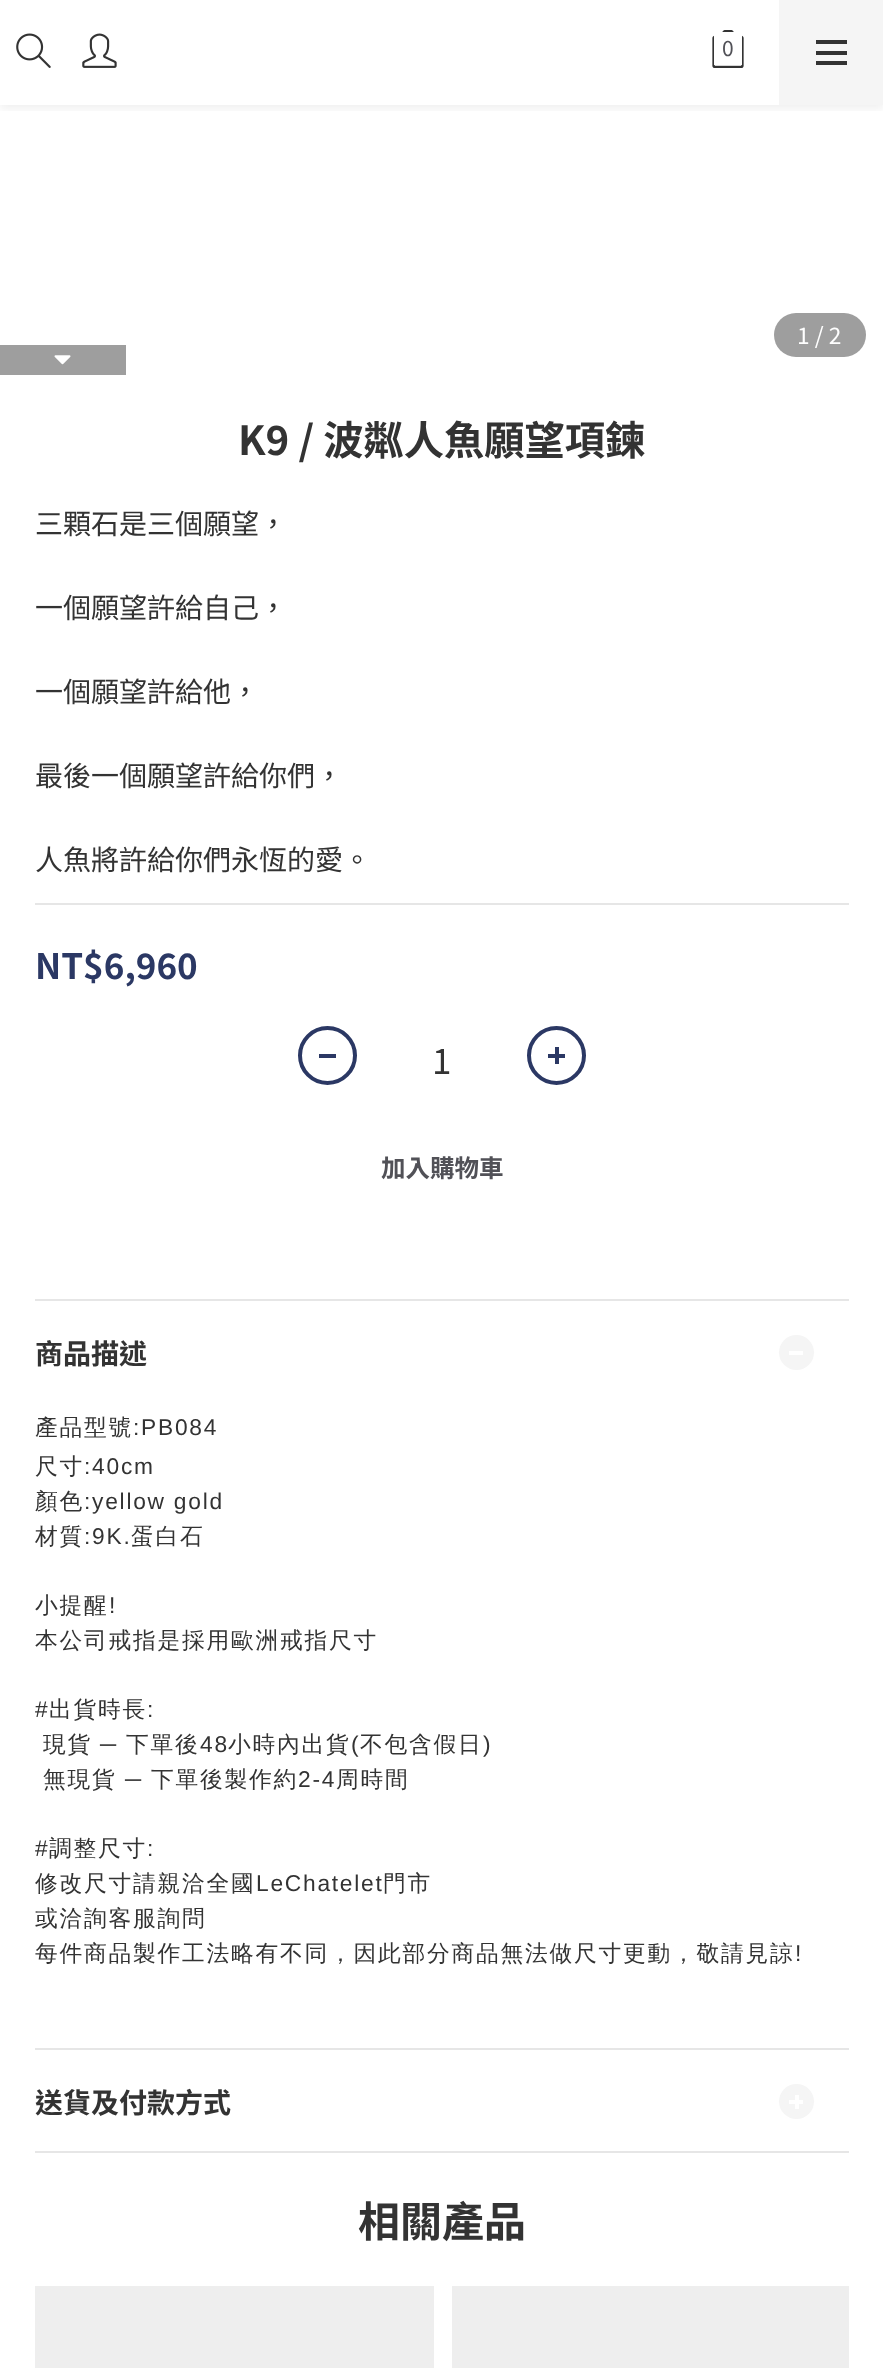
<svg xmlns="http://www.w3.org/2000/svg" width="883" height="2368">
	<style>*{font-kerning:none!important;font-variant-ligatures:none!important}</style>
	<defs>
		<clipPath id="clip1"><rect x="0" y="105" width="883" height="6" /></clipPath>
		<linearGradient id="g1" gradientUnits="userSpaceOnUse" x1="-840" y1="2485" x2="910" y2="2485"><stop offset="0.1" stop-color="#EEEEEE" /><stop offset="0.3" stop-color="#DFDFDF" /><stop offset="0.5" stop-color="#EEEEEE" /></linearGradient>
		<linearGradient id="g2" gradientUnits="userSpaceOnUse" x1="-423" y1="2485" x2="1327" y2="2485"><stop offset="0.1" stop-color="#EEEEEE" /><stop offset="0.3" stop-color="#DFDFDF" /><stop offset="0.5" stop-color="#EEEEEE" /></linearGradient>
	</defs>
	<rect width="100%" height="100%" fill="#FFFFFF" />
	<g clip-path="url(#clip1)">
		<rect x="0" y="4" width="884" height="105" fill="#000000" fill-opacity="0.06" filter="blur(5px)" />
	</g>
	<image x="16" y="33" width="35" height="35" href="assets/img1.png" />
	<image x="82" y="33" width="35" height="35" href="assets/img2.png" />
	<image x="712" y="30" width="32" height="38" href="assets/img3.png" />
	<rect x="714" y="32" width="28" height="33" fill="#FFFFFF" />
	<text x="722" y="56" font-family="Noto Sans TC" font-size="21" fill="#515157">0</text>
	<rect x="779" y="0" width="104" height="105" fill="#F5F5F5" />
	<rect x="816" y="51" width="31" height="4" fill="#333333" />
	<rect x="816" y="40" width="31" height="4" fill="#333333" />
	<rect x="816" y="61" width="31" height="4" fill="#333333" />
	<rect x="774" y="313" width="92" height="44" rx="22" fill="#9E9E9E" />
	<text x="797" y="344" font-family="Noto Sans TC" font-size="22.75" fill="#FFFFFF">1 / 2</text>
	<rect x="0" y="345" width="126" height="30" fill="#9E9E9E" />
	<image x="54" y="355" width="17" height="10" href="assets/img4.png" />
	<text x="238" y="455" font-family="Noto Sans TC" font-size="40.25" font-weight="700" fill="#333333">K9 / 波粼人魚願望項鍊</text>
	<g font-family="Noto Sans TC" font-size="28" fill="#333333">
		<text x="35" y="534">三顆石是三個願望，</text>
		<text x="35" y="618">一個願望許給自己，</text>
		<text x="35" y="702">一個願望許給他，</text>
		<text x="35" y="786">最後一個願望許給你們，</text>
		<text x="35" y="870">人魚將許給你們永恆的愛。</text>
	</g>
	<rect x="35" y="903" width="814" height="2" fill="#E6E6E6" />
	<text x="35" y="979" font-family="Noto Sans TC" font-size="35" font-weight="700" fill="#2B3864">NT$6,960</text>
	<circle cx="327.5" cy="1055.5" r="27.5" fill="none" stroke="#2B3864" stroke-width="4" />
	<rect x="319" y="1054" width="17" height="4" fill="#2B3864" />
	<text x="432" y="1074" font-family="Noto Sans TC" font-size="35" fill="#333333">1</text>
	<circle cx="556.5" cy="1055.5" r="27.5" fill="none" stroke="#2B3864" stroke-width="4" />
	<rect x="548" y="1054" width="17" height="4" fill="#2B3864" />
	<rect x="555" y="1047" width="4" height="17" fill="#2B3864" />
	<text x="381" y="1177" font-family="Noto Sans TC" font-size="24.5" font-weight="700" fill="#515157">加入購物車</text>
	<rect x="35" y="1299" width="814" height="2" fill="#E6E6E6" />
	<text x="35" y="1364" font-family="Noto Sans TC" font-size="28" font-weight="700" fill="#333333">商品描述</text>
	<circle cx="796.5" cy="1352.5" r="17.5" fill="#F5F5F5" />
	<rect x="789" y="1351" width="14" height="4" fill="#FFFFFF" />
	<text x="35" y="1435" font-family="WenQuanYi Zen Hei" font-size="22.75" font-weight="500" letter-spacing="1.75" fill="#333333">產品型號</text>
	<text x="133" y="1435" font-family="Liberation Sans" font-size="22.75" letter-spacing="1.75" fill="#333333">:PB084</text>
	<text x="35" y="1474" font-family="WenQuanYi Zen Hei" font-size="22.75" font-weight="500" letter-spacing="1.75" fill="#333333">尺寸</text>
	<text x="84" y="1474" font-family="Liberation Sans" font-size="22.75" letter-spacing="1.75" fill="#333333">:40cm</text>
	<text x="35" y="1509" font-family="WenQuanYi Zen Hei" font-size="22.75" font-weight="500" letter-spacing="1.75" fill="#333333">顏色</text>
	<text x="84" y="1509" font-family="Liberation Sans" font-size="22.75" letter-spacing="1.75" fill="#333333">:yellow gold</text>
	<text x="35" y="1544" font-family="WenQuanYi Zen Hei" font-size="22.75" font-weight="500" letter-spacing="1.75" fill="#333333">材質</text>
	<text x="84" y="1544" font-family="Liberation Sans" font-size="22.75" letter-spacing="1.75" fill="#333333">:9K.</text>
	<g font-family="WenQuanYi Zen Hei" font-size="22.75" font-weight="500" letter-spacing="1.75" fill="#333333">
		<text x="131" y="1544">蛋白石</text>
		<text x="35" y="1613">小提醒</text>
	</g>
	<text x="109" y="1613" font-family="Liberation Sans" font-size="22.75" letter-spacing="1.75" fill="#333333">!</text>
	<text x="35" y="1648" font-family="WenQuanYi Zen Hei" font-size="22.75" font-weight="500" letter-spacing="1.75" fill="#333333">本公司戒指是採用歐洲戒指尺寸</text>
	<text x="35" y="1717" font-family="Liberation Sans" font-size="22.75" letter-spacing="1.75" fill="#333333">#</text>
	<text x="49" y="1717" font-family="WenQuanYi Zen Hei" font-size="22.75" font-weight="500" letter-spacing="1.75" fill="#333333">出貨時長</text>
	<text x="147" y="1717" font-family="Liberation Sans" font-size="22.75" letter-spacing="1.75" fill="#333333">:</text>
	<text x="43" y="1752" font-family="WenQuanYi Zen Hei" font-size="22.75" font-weight="500" letter-spacing="1.75" fill="#333333">現貨</text>
	<text x="100" y="1752" font-family="Liberation Sans" font-size="22.75" letter-spacing="1.75" fill="#333333">─</text>
	<text x="126" y="1752" font-family="WenQuanYi Zen Hei" font-size="22.75" font-weight="500" letter-spacing="1.75" fill="#333333">下單後</text>
	<text x="200" y="1752" font-family="Liberation Sans" font-size="22.75" letter-spacing="1.75" fill="#333333">48</text>
	<text x="228" y="1752" font-family="WenQuanYi Zen Hei" font-size="22.75" font-weight="500" letter-spacing="1.75" fill="#333333">小時內出貨</text>
	<text x="351" y="1752" font-family="Liberation Sans" font-size="22.75" letter-spacing="1.75" fill="#333333">(</text>
	<text x="360" y="1752" font-family="WenQuanYi Zen Hei" font-size="22.75" font-weight="500" letter-spacing="1.75" fill="#333333">不包含假日</text>
	<text x="483" y="1752" font-family="Liberation Sans" font-size="22.75" letter-spacing="1.75" fill="#333333">)</text>
	<text x="43" y="1787" font-family="WenQuanYi Zen Hei" font-size="22.75" font-weight="500" letter-spacing="1.75" fill="#333333">無現貨</text>
	<text x="125" y="1787" font-family="Liberation Sans" font-size="22.75" letter-spacing="1.75" fill="#333333">─</text>
	<text x="151" y="1787" font-family="WenQuanYi Zen Hei" font-size="22.75" font-weight="500" letter-spacing="1.75" fill="#333333">下單後製作約</text>
	<text x="298" y="1787" font-family="Liberation Sans" font-size="22.75" letter-spacing="1.75" fill="#333333">2-4</text>
	<text x="336" y="1787" font-family="WenQuanYi Zen Hei" font-size="22.75" font-weight="500" letter-spacing="1.75" fill="#333333">周時間</text>
	<text x="35" y="1856" font-family="Liberation Sans" font-size="22.75" letter-spacing="1.75" fill="#333333">#</text>
	<text x="49" y="1856" font-family="WenQuanYi Zen Hei" font-size="22.75" font-weight="500" letter-spacing="1.75" fill="#333333">調整尺寸</text>
	<text x="147" y="1856" font-family="Liberation Sans" font-size="22.75" letter-spacing="1.75" fill="#333333">:</text>
	<text x="35" y="1891" font-family="WenQuanYi Zen Hei" font-size="22.75" font-weight="500" letter-spacing="1.75" fill="#333333">修改尺寸請親洽全國</text>
	<text x="256" y="1891" font-family="Liberation Sans" font-size="22.75" letter-spacing="1.75" fill="#333333">LeChatelet</text>
	<g font-family="WenQuanYi Zen Hei" font-size="22.75" font-weight="500" letter-spacing="1.75" fill="#333333">
		<text x="383" y="1891">門市</text>
		<text x="35" y="1926">或洽詢客服詢問</text>
		<text x="35" y="1961">每件商品製作工法略有不同，因此部分商品無法做尺寸更動，敬請見諒</text>
	</g>
	<text x="795" y="1961" font-family="Liberation Sans" font-size="22.75" letter-spacing="1.75" fill="#333333">!</text>
	<rect x="35" y="2048" width="814" height="2" fill="#E6E6E6" />
	<text x="35" y="2113" font-family="Noto Sans TC" font-size="28" font-weight="700" fill="#333333">送貨及付款方式</text>
	<circle cx="796.5" cy="2101.5" r="17.5" fill="#F5F5F5" />
	<rect x="789" y="2100" width="14" height="4" fill="#FFFFFF" />
	<rect x="795" y="2095" width="4" height="14" fill="#FFFFFF" />
	<rect x="35" y="2151" width="814" height="2" fill="#E6E6E6" />
	<text x="358" y="2237" font-family="Noto Sans TC" font-size="42" font-weight="700" fill="#333333">相關產品</text>
	<rect x="35" y="2286" width="399" height="82" fill="url(#g1)" />
	<rect x="452" y="2286" width="397" height="82" fill="url(#g2)" />
</svg>
